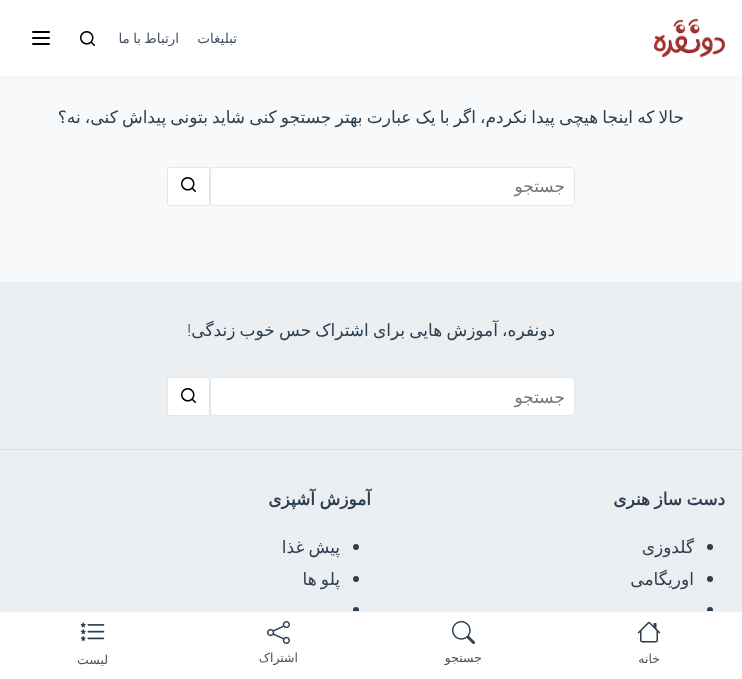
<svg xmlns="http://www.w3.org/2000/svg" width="742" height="679">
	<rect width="100%" height="100%" fill="#F8F9FB" />
	<rect x="0" y="0" width="742" height="76" fill="#FFFFFF" />
	<rect x="0" y="76" width="742" height="1" fill="#F4F5F6" />
	<image x="654" y="19" width="71" height="38" href="assets/img1.png" />
	<g font-family="DejaVu Sans" font-size="13.5" direction="rtl" fill="#415161">
		<text x="237" y="43">تبلیغات</text>
		<text x="179" y="43" word-spacing="-1">ارتباط با ما</text>
	</g>
	<image x="80" y="31" width="15" height="15" href="assets/img2.png" />
	<rect x="32" y="31" width="18" height="2" rx="1" fill="#000000" />
	<rect x="32" y="37" width="18" height="2" rx="1" fill="#000000" />
	<rect x="32" y="43" width="18" height="2" rx="1" fill="#000000" />
	<text x="684" y="123" word-spacing="-1.25" font-family="DejaVu Sans" font-size="17" direction="rtl" fill="#2C3E50">حالا که اینجا هیچی پیدا نکردم، اگر با یک عبارت بهتر جستجو کنی شاید بتونی پیداش کنی، نه؟</text>
	<rect x="210.5" y="167.5" width="364" height="38" rx="3.5" fill="#FFFFFF" stroke="#E2E7ED" />
	<text x="565" y="192" font-family="DejaVu Sans" font-size="17" direction="rtl" fill="#757575">جستجو</text>
	<path d="M170 167.5H209.5V205.5H170C168.5 205.5 167.5 204.5 167.5 203V170C167.5 168.5 168.5 167.5 170 167.5Z" fill="#FFFFFF" stroke="#E2E7ED" />
	<image x="181" y="177" width="15" height="15" href="assets/img2.png" />
	<rect x="0" y="282" width="742" height="329" fill="#ECEFF2" />
	<rect x="0" y="449" width="742" height="1" fill="#DDDDDD" />
	<text x="555" y="336" word-spacing="-1.25" font-family="DejaVu Sans" font-size="17" direction="rtl" fill="#2C3E50">دونفره، آموزش هایی برای اشتراک حس خوب زندگی</text>
	<text x="191" y="336" font-family="Roboto" font-size="17" font-weight="300" direction="rtl" fill="#2C3E50">!</text>
	<rect x="210.5" y="377.5" width="364" height="38" rx="3.5" fill="#FFFFFF" stroke="#E2E7ED" />
	<text x="565" y="403" font-family="DejaVu Sans" font-size="17" direction="rtl" fill="#757575">جستجو</text>
	<path d="M170 377.5H209.5V415.5H170C168.5 415.5 167.5 414.5 167.5 413V380C167.5 378.5 168.5 377.5 170 377.5Z" fill="#FFFFFF" stroke="#E2E7ED" />
	<image x="181" y="388" width="15" height="15" href="assets/img2.png" />
	<text x="725" y="505" word-spacing="-1" font-family="DejaVu Sans" font-size="17" font-weight="700" direction="rtl" fill="#2C3E50">دست ساز هنری</text>
	<circle cx="710" cy="547" r="3" fill="#2C3E50" />
	<text x="694" y="553" font-family="DejaVu Sans" font-size="17" direction="rtl" fill="#2C3E50">گلدوزی</text>
	<circle cx="710" cy="579" r="3" fill="#2C3E50" />
	<text x="694" y="585" font-family="DejaVu Sans" font-size="17" direction="rtl" fill="#2C3E50">اوریگامی</text>
	<circle cx="710" cy="610" r="3" fill="#2C3E50" />
	<text x="371" y="505" word-spacing="-1" font-family="DejaVu Sans" font-size="17" font-weight="700" direction="rtl" fill="#2C3E50">آموزش آشپزی</text>
	<circle cx="356" cy="547" r="3" fill="#2C3E50" />
	<text x="340" y="553" word-spacing="-1.25" font-family="DejaVu Sans" font-size="17" direction="rtl" fill="#2C3E50">پیش غذا</text>
	<circle cx="356" cy="579" r="3" fill="#2C3E50" />
	<text x="340" y="585" word-spacing="-1.25" font-family="DejaVu Sans" font-size="17" direction="rtl" fill="#2C3E50">پلو ها</text>
	<circle cx="356" cy="610" r="3" fill="#2C3E50" />
	<rect x="0" y="612" width="742" height="67" fill="#FFFFFF" />
	<rect x="0" y="611" width="742" height="1" fill="#EFEFEF" />
	<image x="637" y="621" width="24" height="22" href="assets/img3.png" />
	<text x="660" y="663" font-family="DejaVu Sans" font-size="12.5" direction="rtl" fill="#505050">خانه</text>
	<image x="452" y="621" width="23" height="23" href="assets/img4.png" />
	<text x="482" y="662" font-family="DejaVu Sans" font-size="12.5" direction="rtl" fill="#505050">جستجو</text>
	<image x="267" y="621" width="23" height="23" href="assets/img5.png" />
	<text x="298" y="662" font-family="DejaVu Sans" font-size="12.5" direction="rtl" fill="#505050">اشتراک</text>
	<image x="80" y="622" width="25" height="19" href="assets/img6.png" />
	<text x="108" y="664" font-family="DejaVu Sans" font-size="12.5" direction="rtl" fill="#505050">لیست</text>
</svg>
